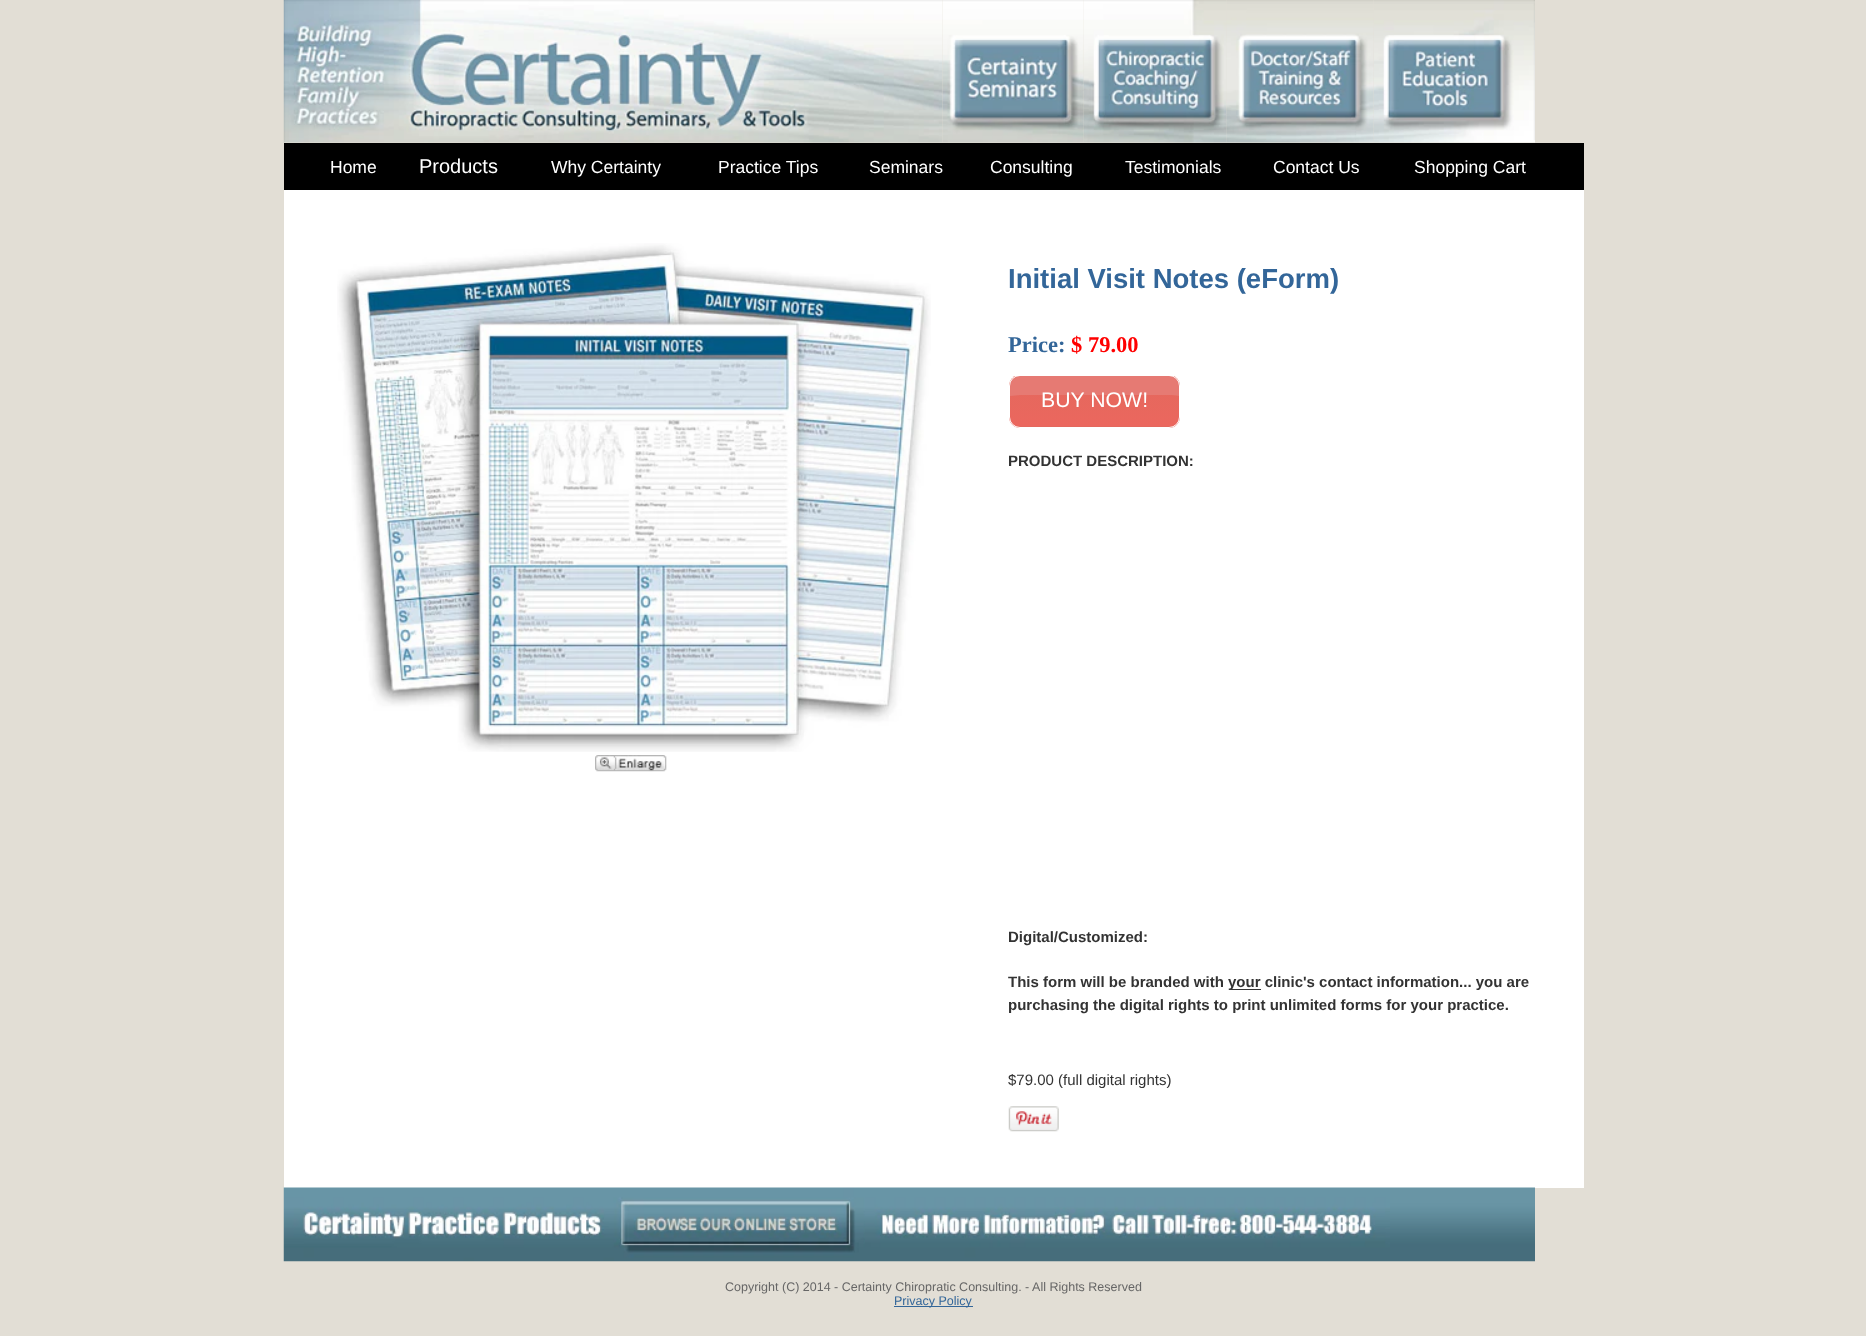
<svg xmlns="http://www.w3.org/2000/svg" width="1866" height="1336">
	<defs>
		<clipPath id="clip1"><rect x="1009" y="375" width="171" height="53" rx="11" /></clipPath>
		<linearGradient id="g1" gradientUnits="userSpaceOnUse" x1="1094" y1="376" x2="1094" y2="426"><stop offset="0.05" stop-color="#E4685D" /><stop offset="1" stop-color="#EB675E" /></linearGradient>
		<linearGradient id="g2" gradientUnits="userSpaceOnUse" x1="1094" y1="426" x2="1094" y2="476"><stop offset="0.05" stop-color="#E4685D" /><stop offset="1" stop-color="#EB675E" /></linearGradient>
	</defs>
	<rect width="100%" height="100%" fill="#E2DED5" />
	<image x="283" y="0" width="660" height="143" href="assets/img1.png" />
	<image x="942" y="0" width="142" height="143" href="assets/img2.png" />
	<image x="1083" y="0" width="144" height="143" href="assets/img3.png" />
	<image x="1226" y="0" width="148" height="143" href="assets/img4.png" />
	<image x="1374" y="0" width="161" height="143" href="assets/img5.png" />
	<rect x="284" y="143" width="1300" height="47" fill="#000000" />
	<text x="330" y="173" font-family="Liberation Sans" font-size="17.5" fill="#FFFFFF">Home</text>
	<text x="419" y="173" font-family="Liberation Sans" font-size="20" fill="#FFFFFF">Products</text>
	<g font-family="Liberation Sans" font-size="17.5" fill="#FFFFFF">
		<text x="551" y="173">Why Certainty</text>
		<text x="718" y="173">Practice Tips</text>
		<text x="869" y="173">Seminars</text>
		<text x="990" y="173">Consulting</text>
		<text x="1125" y="173">Testimonials</text>
		<text x="1273" y="173">Contact Us</text>
		<text x="1414" y="173">Shopping Cart</text>
	</g>
	<rect x="284" y="190" width="1300" height="998" fill="#FFFFFF" />
	<image x="337" y="243" width="594" height="509" href="assets/img6.png" />
	<image x="595" y="755" width="72" height="17" href="assets/img7.png" />
	<text x="1008" y="288" font-family="Liberation Sans" font-size="27.5" font-weight="700" fill="#336699">Initial Visit Notes (eForm)</text>
	<text x="1008" y="352" font-family="Liberation Serif" font-size="22.5" font-weight="700" fill="#336699">Price:</text>
	<text x="1071" y="352" font-family="Liberation Serif" font-size="22.5" font-weight="700" fill="#FF0000">$ 79.00</text>
	<g clip-path="url(#clip1)">
		<rect x="1009" y="376" width="171" height="50" fill="url(#g1)" />
		<rect x="1009" y="426" width="171" height="2" fill="url(#g2)" />
	</g>
	<path d="M1020 395H1169C1172 395 1176 395 1179 396V386C1179 380 1175 376 1169 376H1020C1014 376 1010 380 1010 386V396Z" fill="#E67A73" />
	<rect x="1009.5" y="375.5" width="170" height="52" rx="10.5" fill="none" stroke="#FFFFFF" />
	<text x="1041" y="407" font-family="Liberation Sans" font-size="21.25" fill="#FFFFFF">BUY NOW!</text>
	<g font-family="Liberation Sans" font-size="15" font-weight="700" fill="#333333">
		<text x="1008" y="466">PRODUCT DESCRIPTION:</text>
		<text x="1008" y="942">Digital/Customized:</text>
		<text x="1008" y="987">This form will be branded with</text>
	</g>
	<rect x="1229" y="989" width="32" height="1" fill="#333333" />
	<g font-family="Liberation Sans" font-size="15" font-weight="700" fill="#333333">
		<text x="1228" y="987">your clinic's contact information... you are</text>
		<text x="1008" y="1010">purchasing the digital rights to print unlimited forms for your practice.</text>
	</g>
	<text x="1008" y="1085" font-family="Liberation Sans" font-size="15" fill="#333333">$79.00 (full digital rights)</text>
	<image x="1008" y="1106" width="51" height="26" href="assets/img8.png" />
	<image x="283" y="1187" width="582" height="75" href="assets/img9.png" />
	<image x="865" y="1187" width="525" height="75" href="assets/img10.png" />
	<image x="1390" y="1187" width="145" height="75" href="assets/img11.png" />
	<text x="725" y="1291" font-family="Liberation Sans" font-size="12.5" fill="#666666">Copyright (C) 2014 - Certainty Chiropratic Consulting. - All Rights Reserved</text>
	<rect x="894" y="1306" width="79" height="1" fill="#336699" />
	<text x="894" y="1305" font-family="Liberation Sans" font-size="12.5" fill="#336699">Privacy Policy</text>
</svg>
